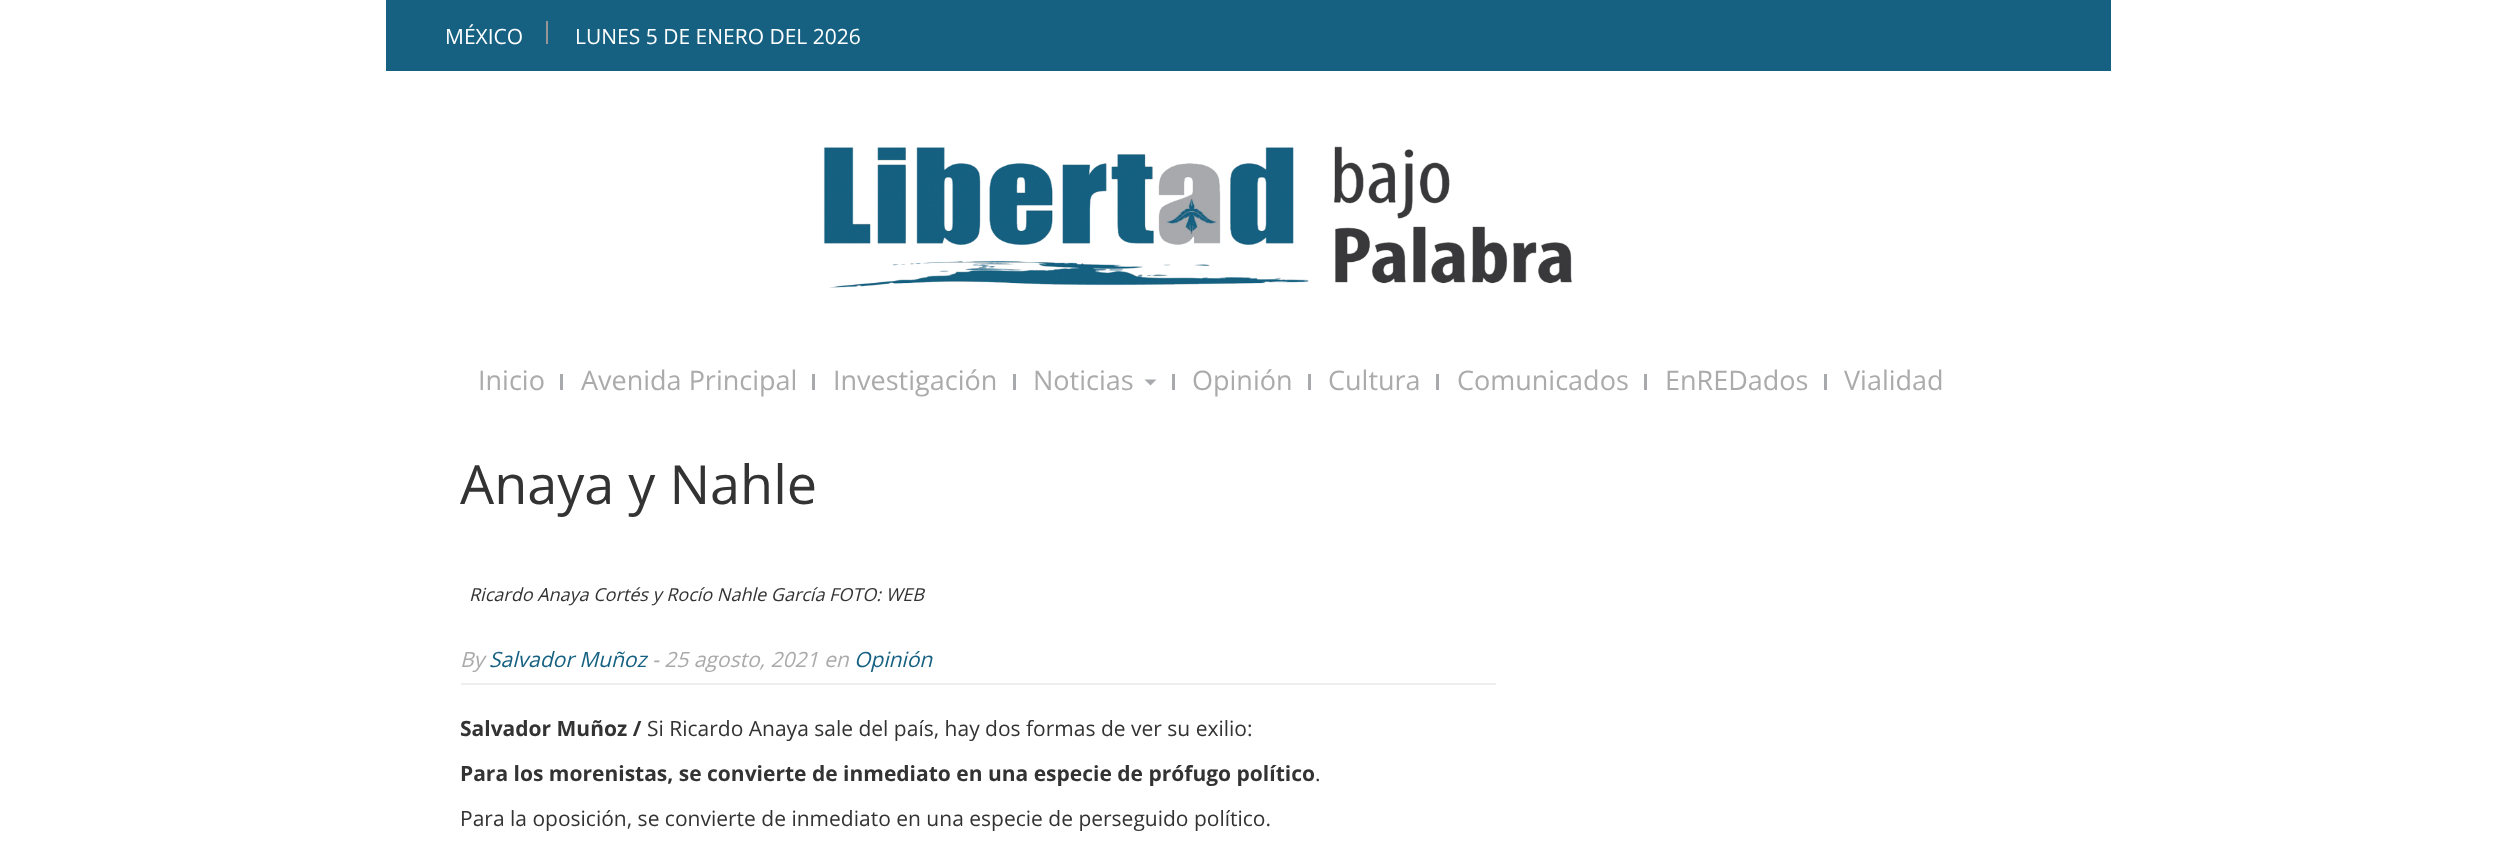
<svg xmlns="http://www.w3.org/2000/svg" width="2494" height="865">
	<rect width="100%" height="100%" fill="#FFFFFF" />
	<rect x="386" y="0" width="1725" height="71" fill="#166182" />
	<rect x="546" y="21" width="2" height="23" fill="#969696" />
	<g font-family="Open Sans" font-size="21" fill="#FFFFFF">
		<text x="445" y="44">MÉXICO</text>
		<text x="575" y="44">LUNES 5 DE ENERO DEL 2026</text>
	</g>
	<image x="823" y="146" width="750" height="142" href="assets/img1.png" />
	<text x="478" y="390" font-family="Open Sans" font-size="27" fill="#ABABAB">Inicio</text>
	<rect x="560" y="374" width="3" height="16" fill="#A7A9AC" />
	<text x="581" y="390" font-family="Open Sans" font-size="27" fill="#ABABAB">Avenida Principal</text>
	<rect x="812" y="374" width="3" height="16" fill="#A7A9AC" />
	<text x="833" y="390" font-family="Open Sans" font-size="27" fill="#ABABAB">Investigación</text>
	<rect x="1013" y="374" width="3" height="16" fill="#A7A9AC" />
	<text x="1033" y="390" font-family="Open Sans" font-size="27" fill="#ABABAB">Noticias</text>
	<path d="M1144.5 379.5H1156.5L1150.5 385.5Z" fill="#A7A9AC" />
	<rect x="1172" y="374" width="3" height="16" fill="#A7A9AC" />
	<text x="1192" y="390" font-family="Open Sans" font-size="27" fill="#ABABAB">Opinión</text>
	<rect x="1308" y="374" width="3" height="16" fill="#A7A9AC" />
	<text x="1328" y="390" font-family="Open Sans" font-size="27" fill="#ABABAB">Cultura</text>
	<rect x="1436" y="374" width="3" height="16" fill="#A7A9AC" />
	<text x="1457" y="390" font-family="Open Sans" font-size="27" fill="#ABABAB">Comunicados</text>
	<rect x="1644" y="374" width="3" height="16" fill="#A7A9AC" />
	<text x="1665" y="390" font-family="Open Sans" font-size="27" fill="#ABABAB">EnREDados</text>
	<rect x="1824" y="374" width="3" height="16" fill="#A7A9AC" />
	<text x="1844" y="390" font-family="Open Sans" font-size="27" fill="#ABABAB">Vialidad</text>
	<text x="460" y="504" font-family="Open Sans" font-size="54" fill="#333333">Anaya y Nahle</text>
	<text x="469" y="601" font-family="Open Sans" font-size="18" font-style="italic" fill="#333333">Ricardo Anaya Cortés y Rocío Nahle García FOTO: WEB</text>
	<rect x="461" y="683" width="1035" height="2" fill="#EEEEEE" />
	<text x="460" y="667" font-family="Open Sans" font-size="21" font-style="italic" fill="#ABABAB">By</text>
	<text x="489" y="667" font-family="Open Sans" font-size="21" font-style="italic" fill="#166182">Salvador Muñoz</text>
	<text x="652" y="667" font-family="Open Sans" font-size="21" font-style="italic" fill="#ABABAB">- 25 agosto, 2021 en</text>
	<text x="854" y="667" font-family="Open Sans" font-size="21" font-style="italic" fill="#166182">Opinión</text>
	<text x="460" y="736" font-family="Open Sans" font-size="21" font-weight="700" fill="#333333">Salvador Muñoz /</text>
	<text x="647" y="736" font-family="Open Sans" font-size="21" fill="#333333">Si Ricardo Anaya sale del país, hay dos formas de ver su exilio:</text>
	<text x="460" y="781" font-family="Open Sans" font-size="21" font-weight="700" fill="#333333">Para los morenistas, se convierte de inmediato en una especie de prófugo político</text>
	<g font-family="Open Sans" font-size="21" fill="#333333">
		<text x="1315" y="781">.</text>
		<text x="460" y="826">Para la oposición, se convierte de inmediato en una especie de perseguido político.</text>
	</g>
</svg>
